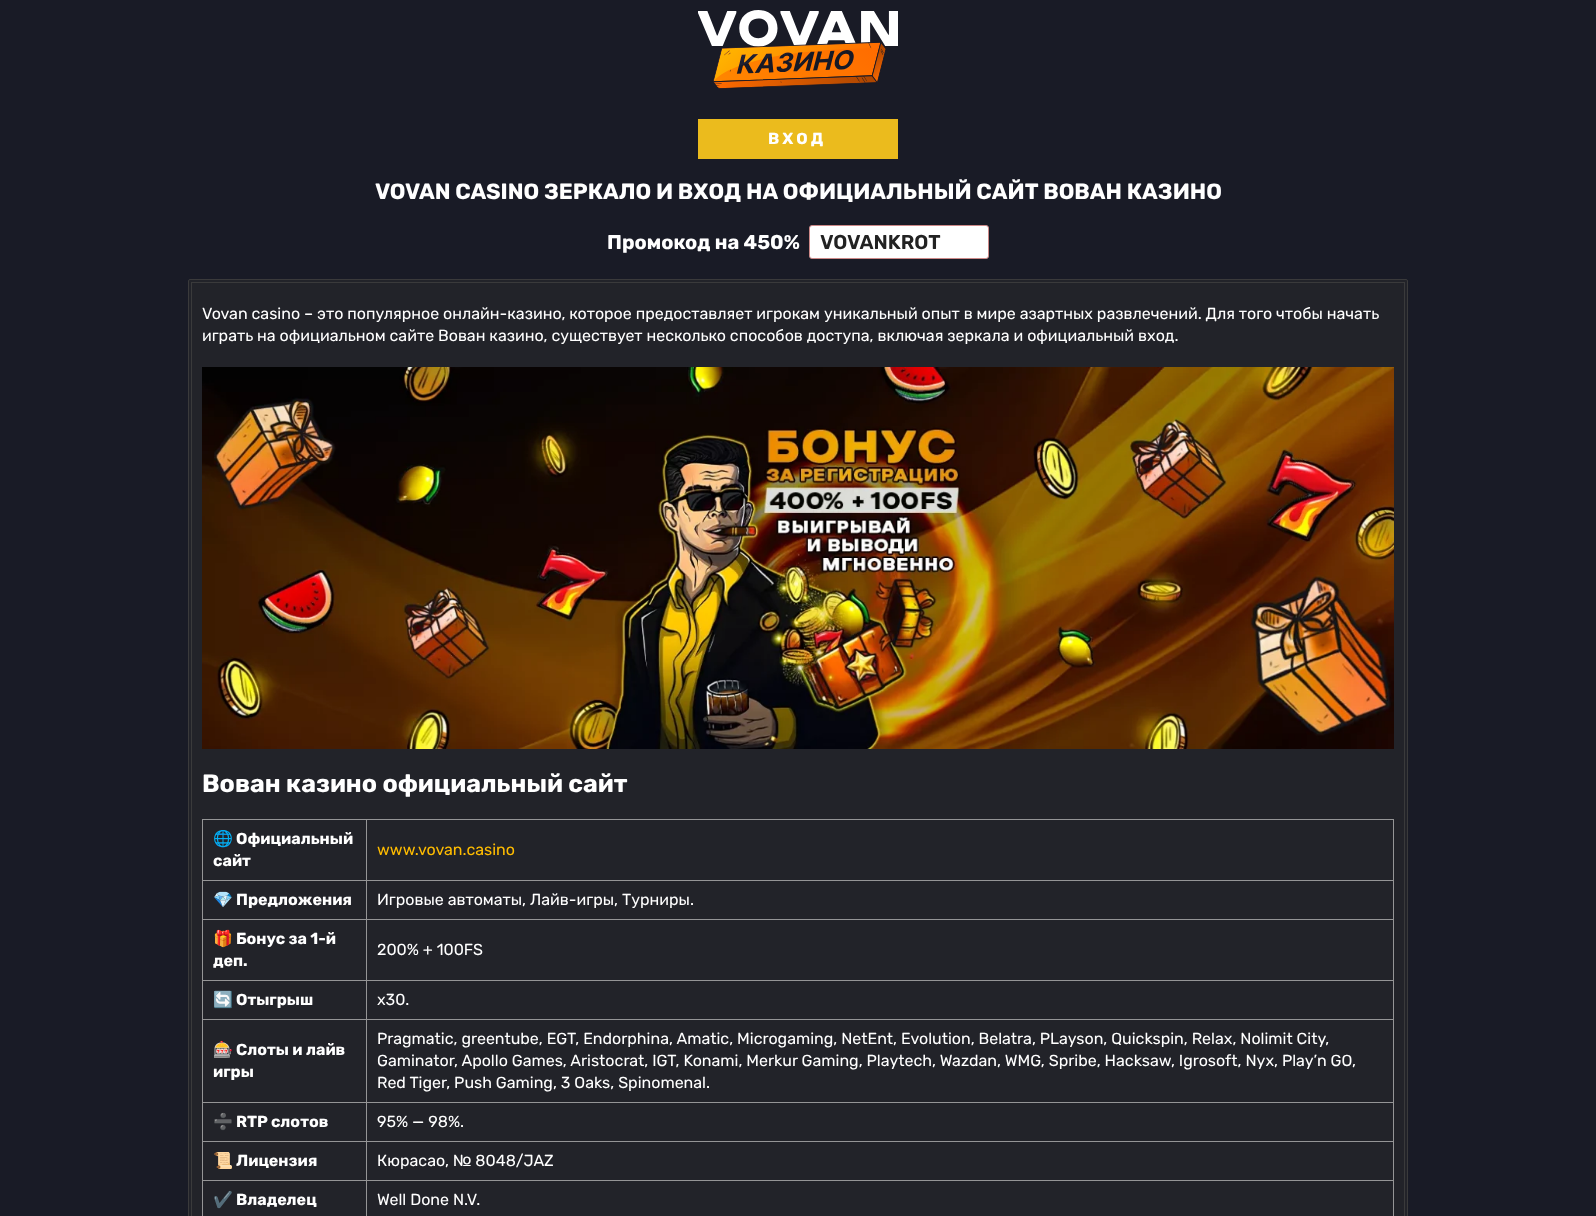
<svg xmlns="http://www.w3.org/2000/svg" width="1596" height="1216">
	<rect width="100%" height="100%" fill="#191B26" />
	<image x="698" y="10" width="200" height="79" href="assets/img1.png" />
	<rect x="698" y="119" width="200" height="40" fill="#EBBB1D" />
	<text x="768" y="144" font-family="Rubik" font-size="16" font-weight="700" letter-spacing="3" fill="#FFFFFF">ВХОД</text>
	<text x="375" y="199" font-family="Rubik" font-size="22" font-weight="700" fill="#FFFFFF">VOVAN CASINO ЗЕРКАЛО И ВХОД НА ОФИЦИАЛЬНЫЙ САЙТ ВОВАН КАЗИНО</text>
	<text x="607" y="249" font-family="Rubik" font-size="20" font-weight="700" fill="#FFFFFF">Промокод на 450%</text>
	<rect x="809.5" y="225.5" width="179" height="33" rx="2.5" fill="#FFFFFF" stroke="#CC8887" />
	<text x="820" y="249" font-family="Rubik" font-size="20" font-weight="600" fill="#222222">VOVANKROT</text>
	<rect x="188.5" y="279.5" width="1219" height="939" rx="1.5" fill="#222329" stroke="#3A3A3B" />
	<rect x="191.5" y="282.5" width="1213" height="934" fill="none" stroke="#3A3A3B" />
	<g font-family="Rubik" font-size="16" fill="#FFFFFF">
		<text x="202" y="319">Vovan casino – это популярное онлайн-казино, которое предоставляет игрокам уникальный опыт в мире азартных развлечений. Для того чтобы начать</text>
		<text x="202" y="341">играть на официальном сайте Вован казино, существует несколько способов доступа, включая зеркала и официальный вход.</text>
	</g>
	<image x="202" y="367" width="1192" height="382" href="assets/img2.png" />
	<text x="202" y="792" font-family="Rubik" font-size="25" font-weight="700" fill="#FFFFFF">Вован казино официальный сайт</text>
	<rect x="202" y="819" width="1192" height="1" fill="#959596" />
	<rect x="202" y="819" width="1" height="397" fill="#959596" />
	<rect x="366" y="1180" width="1" height="36" fill="#959596" />
	<rect x="1393" y="819" width="1" height="397" fill="#959596" />
	<rect x="366" y="1180" width="1028" height="1" fill="#959596" />
	<rect x="366" y="1141" width="1" height="40" fill="#959596" />
	<rect x="366" y="1141" width="1028" height="1" fill="#959596" />
	<rect x="366" y="1102" width="1" height="40" fill="#959596" />
	<rect x="366" y="1102" width="1028" height="1" fill="#959596" />
	<rect x="366" y="1019" width="1" height="84" fill="#959596" />
	<rect x="366" y="1019" width="1028" height="1" fill="#959596" />
	<rect x="366" y="980" width="1" height="40" fill="#959596" />
	<rect x="366" y="980" width="1028" height="1" fill="#959596" />
	<rect x="366" y="919" width="1" height="62" fill="#959596" />
	<rect x="366" y="919" width="1028" height="1" fill="#959596" />
	<rect x="366" y="880" width="1" height="40" fill="#959596" />
	<rect x="366" y="880" width="1028" height="1" fill="#959596" />
	<rect x="366" y="819" width="1" height="62" fill="#959596" />
	<rect x="202" y="880" width="165" height="1" fill="#959596" />
	<text x="213" y="844" font-family="Noto Color Emoji" font-size="16" font-weight="700" fill="#FFFFFF">🌐</text>
	<g font-family="Rubik" font-size="16" font-weight="700" fill="#FFFFFF">
		<text x="236" y="844">Официальный</text>
		<text x="213" y="866">сайт</text>
	</g>
	<text x="377" y="855" font-family="Rubik" font-size="16" fill="#FFBC00">www.vovan.casino</text>
	<rect x="202" y="919" width="165" height="1" fill="#959596" />
	<text x="213" y="905" font-family="Noto Color Emoji" font-size="16" font-weight="700" fill="#FFFFFF">💎</text>
	<text x="236" y="905" font-family="Rubik" font-size="16" font-weight="700" fill="#FFFFFF">Предложения</text>
	<text x="377" y="905" font-family="Rubik" font-size="16" fill="#FFFFFF">Игровые автоматы, Лайв-игры, Турниры.</text>
	<rect x="202" y="980" width="165" height="1" fill="#959596" />
	<text x="213" y="944" font-family="Noto Color Emoji" font-size="16" font-weight="700" fill="#FFFFFF">🎁</text>
	<g font-family="Rubik" font-size="16" font-weight="700" fill="#FFFFFF">
		<text x="236" y="944">Бонус за 1-й</text>
		<text x="213" y="966">деп.</text>
	</g>
	<text x="377" y="955" font-family="Rubik" font-size="16" fill="#FFFFFF">200% + 100FS</text>
	<rect x="202" y="1019" width="165" height="1" fill="#959596" />
	<text x="213" y="1005" font-family="Noto Color Emoji" font-size="16" font-weight="700" fill="#FFFFFF">🔄</text>
	<text x="236" y="1005" font-family="Rubik" font-size="16" font-weight="700" fill="#FFFFFF">Отыгрыш</text>
	<text x="377" y="1005" font-family="Rubik" font-size="16" fill="#FFFFFF">x30.</text>
	<rect x="202" y="1102" width="165" height="1" fill="#959596" />
	<text x="213" y="1055" font-family="Noto Color Emoji" font-size="16" font-weight="700" fill="#FFFFFF">🎰</text>
	<g font-family="Rubik" font-size="16" font-weight="700" fill="#FFFFFF">
		<text x="236" y="1055">Слоты и лайв</text>
		<text x="213" y="1077">игры</text>
	</g>
	<g font-family="Rubik" font-size="16" fill="#FFFFFF">
		<text x="377" y="1044">Pragmatic, greentube, EGT, Endorphina, Amatic, Microgaming, NetEnt, Evolution, Belatra, PLayson, Quickspin, Relax, Nolimit City,</text>
		<text x="377" y="1066">Gaminator, Apollo Games, Aristocrat, IGT, Konami, Merkur Gaming, Playtech, Wazdan, WMG, Spribe, Hacksaw, Igrosoft, Nyx, Play’n GO,</text>
		<text x="377" y="1088">Red Tiger, Push Gaming, 3 Oaks, Spinomenal.</text>
	</g>
	<rect x="202" y="1141" width="165" height="1" fill="#959596" />
	<text x="213" y="1127" font-family="Noto Color Emoji" font-size="16" font-weight="700" fill="#FFFFFF">➗</text>
	<text x="236" y="1127" font-family="Rubik" font-size="16" font-weight="700" fill="#FFFFFF">RTP слотов</text>
	<text x="377" y="1127" font-family="Rubik" font-size="16" fill="#FFFFFF">95% — 98%.</text>
	<rect x="202" y="1180" width="165" height="1" fill="#959596" />
	<text x="213" y="1166" font-family="Noto Color Emoji" font-size="16" font-weight="700" fill="#FFFFFF">📜</text>
	<text x="236" y="1166" font-family="Rubik" font-size="16" font-weight="700" fill="#FFFFFF">Лицензия</text>
	<text x="377" y="1166" font-family="Rubik" font-size="16" fill="#FFFFFF">Кюрасао, № 8048/JAZ</text>
	<text x="213" y="1205" font-family="Noto Color Emoji" font-size="16" font-weight="700" fill="#FFFFFF">✔️</text>
	<text x="236" y="1205" font-family="Rubik" font-size="16" font-weight="700" fill="#FFFFFF">Владелец</text>
	<text x="377" y="1205" font-family="Rubik" font-size="16" fill="#FFFFFF">Well Done N.V.</text>
</svg>
